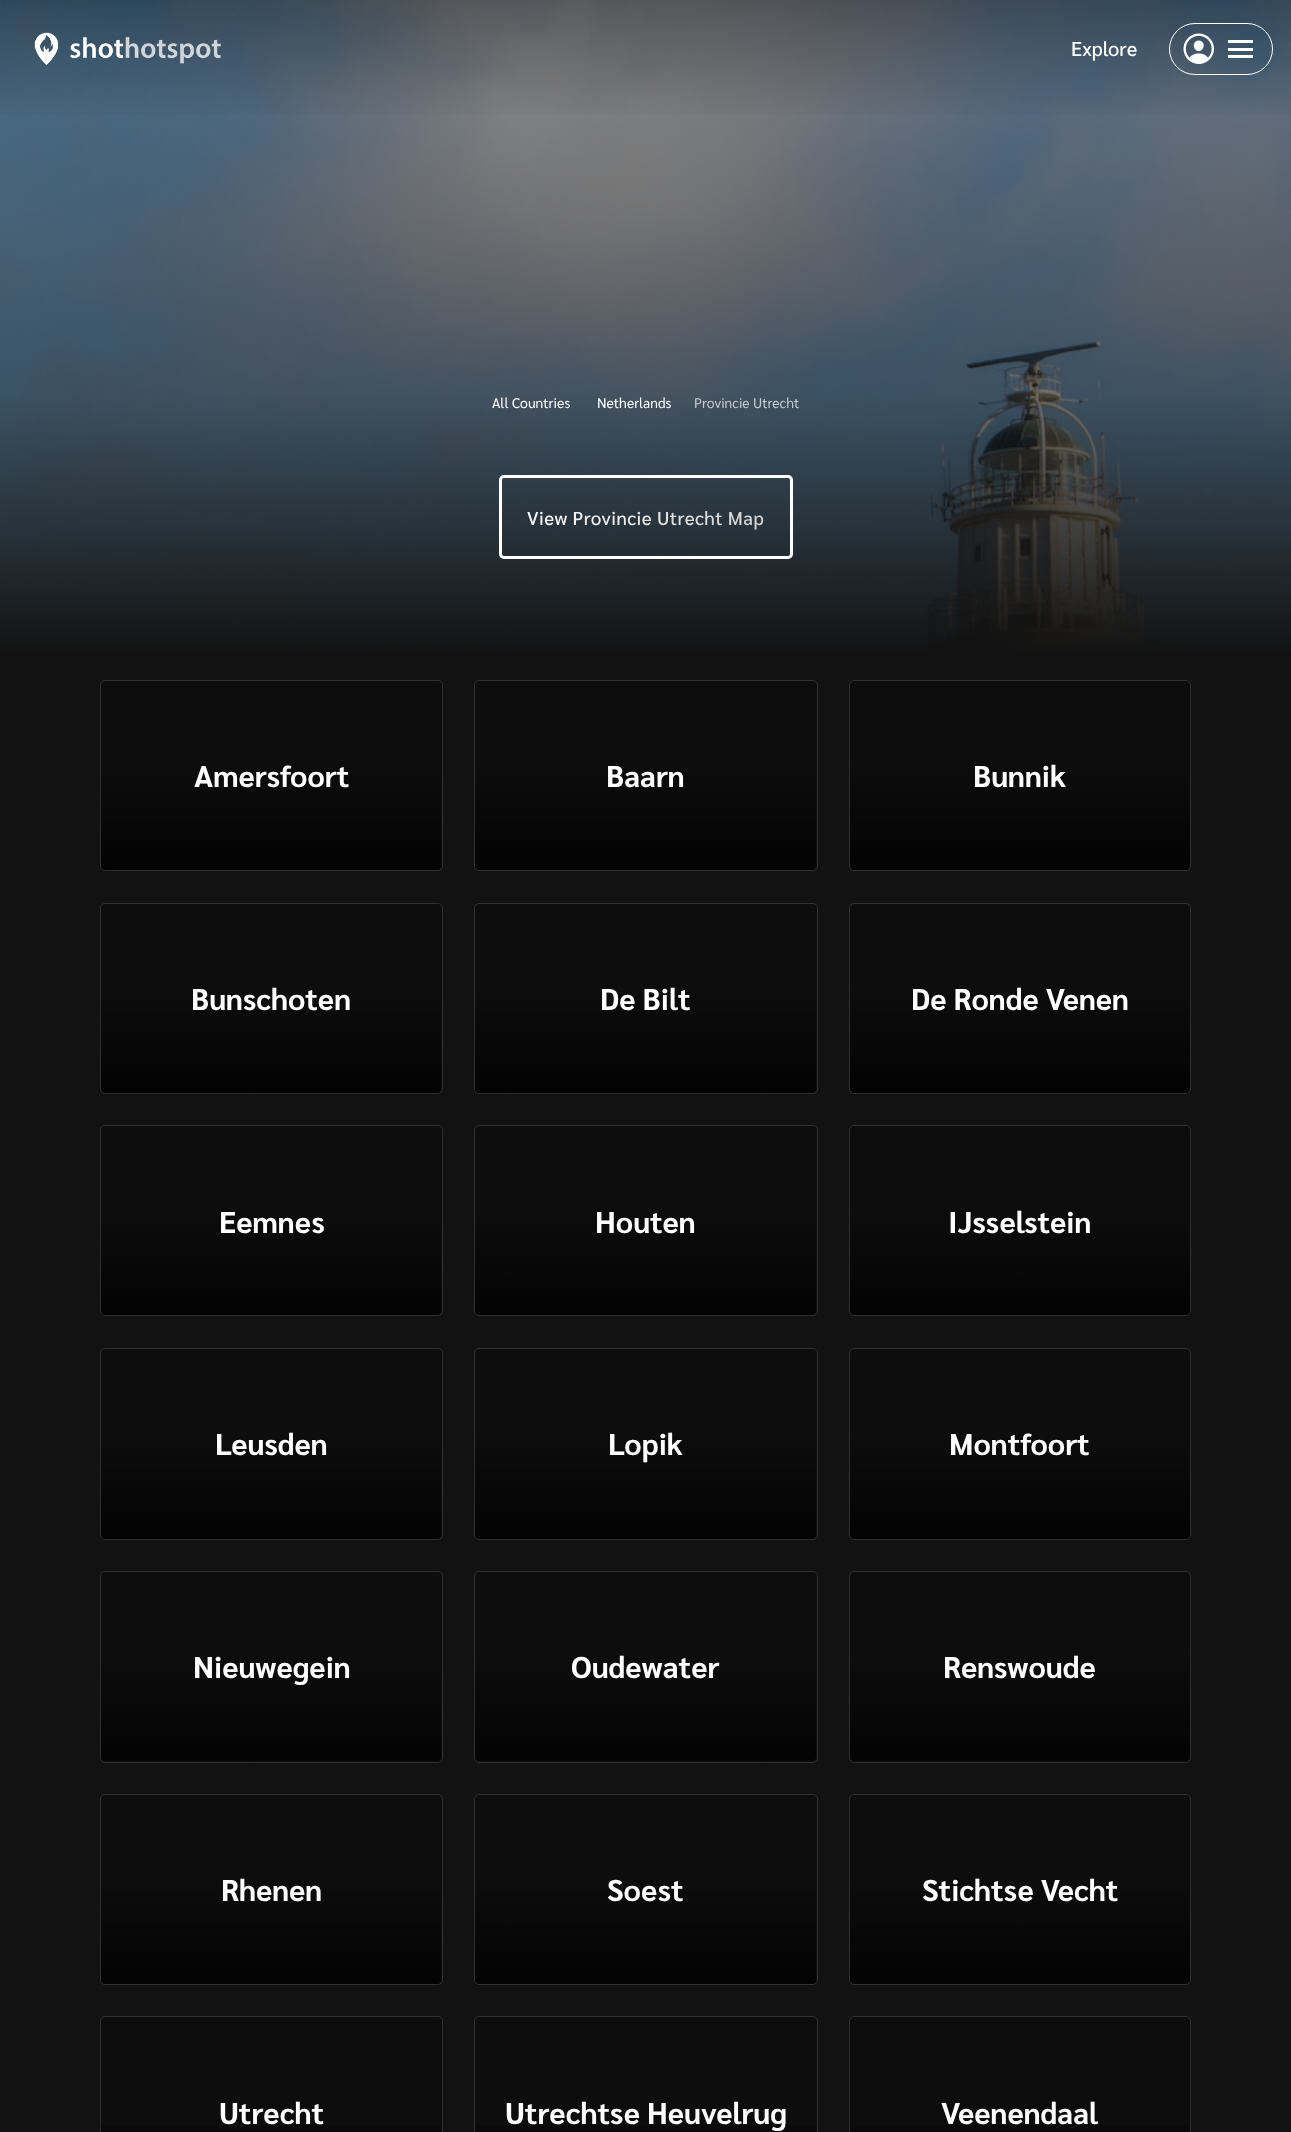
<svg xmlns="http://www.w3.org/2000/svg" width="1291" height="2132">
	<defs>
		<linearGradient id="g1" gradientUnits="userSpaceOnUse" x1="499" y1="517" x2="896" y2="517"><stop offset="0" stop-color="#FFFFFF" /><stop offset="1" stop-color="#BBBBBB" /></linearGradient>
		<linearGradient id="g2" gradientUnits="userSpaceOnUse" x1="646" y1="-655" x2="646" y2="655"><stop offset="0" stop-color="#121212" stop-opacity="0" /><stop offset="0.8" stop-color="#121212" stop-opacity="0.6" /><stop offset="1" stop-color="#121212" /></linearGradient>
		<linearGradient id="g3" gradientUnits="userSpaceOnUse" x1="646" y1="188" x2="646" y2="0"><stop offset="0.35" stop-color="#000000" stop-opacity="0" /><stop offset="1" stop-color="#000000" stop-opacity="0.35" /></linearGradient>
		<linearGradient id="g4" gradientUnits="userSpaceOnUse" x1="271" y1="756" x2="271" y2="870"><stop offset="0.05" stop-color="#000000" stop-opacity="0" /><stop offset="1" stop-color="#000000" stop-opacity="0.8" /></linearGradient>
		<linearGradient id="g5" gradientUnits="userSpaceOnUse" x1="646" y1="756" x2="646" y2="870"><stop offset="0.05" stop-color="#000000" stop-opacity="0" /><stop offset="1" stop-color="#000000" stop-opacity="0.8" /></linearGradient>
		<linearGradient id="g6" gradientUnits="userSpaceOnUse" x1="1020" y1="756" x2="1020" y2="870"><stop offset="0.05" stop-color="#000000" stop-opacity="0" /><stop offset="1" stop-color="#000000" stop-opacity="0.8" /></linearGradient>
		<linearGradient id="g7" gradientUnits="userSpaceOnUse" x1="271" y1="980" x2="271" y2="1093"><stop offset="0.05" stop-color="#000000" stop-opacity="0" /><stop offset="1" stop-color="#000000" stop-opacity="0.8" /></linearGradient>
		<linearGradient id="g8" gradientUnits="userSpaceOnUse" x1="646" y1="980" x2="646" y2="1093"><stop offset="0.05" stop-color="#000000" stop-opacity="0" /><stop offset="1" stop-color="#000000" stop-opacity="0.8" /></linearGradient>
		<linearGradient id="g9" gradientUnits="userSpaceOnUse" x1="1020" y1="980" x2="1020" y2="1093"><stop offset="0.05" stop-color="#000000" stop-opacity="0" /><stop offset="1" stop-color="#000000" stop-opacity="0.8" /></linearGradient>
		<linearGradient id="g10" gradientUnits="userSpaceOnUse" x1="271" y1="1203" x2="271" y2="1315"><stop offset="0.05" stop-color="#000000" stop-opacity="0" /><stop offset="1" stop-color="#000000" stop-opacity="0.8" /></linearGradient>
		<linearGradient id="g11" gradientUnits="userSpaceOnUse" x1="646" y1="1203" x2="646" y2="1315"><stop offset="0.05" stop-color="#000000" stop-opacity="0" /><stop offset="1" stop-color="#000000" stop-opacity="0.8" /></linearGradient>
		<linearGradient id="g12" gradientUnits="userSpaceOnUse" x1="1020" y1="1203" x2="1020" y2="1315"><stop offset="0.05" stop-color="#000000" stop-opacity="0" /><stop offset="1" stop-color="#000000" stop-opacity="0.8" /></linearGradient>
		<linearGradient id="g13" gradientUnits="userSpaceOnUse" x1="271" y1="1425" x2="271" y2="1539"><stop offset="0.05" stop-color="#000000" stop-opacity="0" /><stop offset="1" stop-color="#000000" stop-opacity="0.8" /></linearGradient>
		<linearGradient id="g14" gradientUnits="userSpaceOnUse" x1="646" y1="1425" x2="646" y2="1539"><stop offset="0.05" stop-color="#000000" stop-opacity="0" /><stop offset="1" stop-color="#000000" stop-opacity="0.8" /></linearGradient>
		<linearGradient id="g15" gradientUnits="userSpaceOnUse" x1="1020" y1="1425" x2="1020" y2="1539"><stop offset="0.05" stop-color="#000000" stop-opacity="0" /><stop offset="1" stop-color="#000000" stop-opacity="0.8" /></linearGradient>
		<linearGradient id="g16" gradientUnits="userSpaceOnUse" x1="271" y1="1648" x2="271" y2="1761"><stop offset="0.05" stop-color="#0D0D0D" /><stop offset="1" stop-color="#030303" /></linearGradient>
		<linearGradient id="g17" gradientUnits="userSpaceOnUse" x1="646" y1="1648" x2="646" y2="1761"><stop offset="0.05" stop-color="#0D0D0D" /><stop offset="1" stop-color="#030303" /></linearGradient>
		<linearGradient id="g18" gradientUnits="userSpaceOnUse" x1="1020" y1="1648" x2="1020" y2="1761"><stop offset="0.05" stop-color="#0D0D0D" /><stop offset="1" stop-color="#030303" /></linearGradient>
		<linearGradient id="g19" gradientUnits="userSpaceOnUse" x1="271" y1="1870" x2="271" y2="1984"><stop offset="0.05" stop-color="#000000" stop-opacity="0" /><stop offset="1" stop-color="#000000" stop-opacity="0.8" /></linearGradient>
		<linearGradient id="g20" gradientUnits="userSpaceOnUse" x1="646" y1="1870" x2="646" y2="1984"><stop offset="0.05" stop-color="#000000" stop-opacity="0" /><stop offset="1" stop-color="#000000" stop-opacity="0.8" /></linearGradient>
		<linearGradient id="g21" gradientUnits="userSpaceOnUse" x1="1020" y1="1870" x2="1020" y2="1984"><stop offset="0.05" stop-color="#000000" stop-opacity="0" /><stop offset="1" stop-color="#000000" stop-opacity="0.8" /></linearGradient>
		<linearGradient id="g22" gradientUnits="userSpaceOnUse" x1="271" y1="2093" x2="271" y2="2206"><stop offset="0.05" stop-color="#0D0D0D" /><stop offset="1" stop-color="#030303" /></linearGradient>
		<linearGradient id="g23" gradientUnits="userSpaceOnUse" x1="646" y1="2093" x2="646" y2="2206"><stop offset="0.05" stop-color="#0D0D0D" /><stop offset="1" stop-color="#030303" /></linearGradient>
		<linearGradient id="g24" gradientUnits="userSpaceOnUse" x1="1020" y1="2093" x2="1020" y2="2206"><stop offset="0.05" stop-color="#0D0D0D" /><stop offset="1" stop-color="#030303" /></linearGradient>
	</defs>
	<rect width="100%" height="100%" fill="#FFFFFF" />
	<image x="0" y="0" width="1291" height="651" href="assets/img3.png" />
	<rect x="0" y="0" width="1291" height="655" fill="url(#g2)" />
	<rect x="0" y="0" width="1291" height="115" fill="url(#g3)" />
	<image x="34" y="32" width="187" height="33" href="assets/img1.png" />
	<text x="1071" y="56" font-family="Sarabun" font-size="20" font-weight="500" fill="#FFFFFF">Explore</text>
	<rect x="1169.5" y="23.5" width="103" height="51" rx="25.5" fill="none" stroke="#FFFFFF" />
	<image x="1183" y="33" width="31" height="31" href="assets/img2.png" />
	<rect x="1228" y="40" width="25" height="3" fill="#FFFFFF" />
	<rect x="1228" y="48" width="25" height="3" fill="#FFFFFF" />
	<rect x="1228" y="55" width="25" height="3" fill="#FFFFFF" />
	<g font-family="Sarabun" font-size="14" fill="#FFFFFF">
		<text x="492" y="408">All Countries</text>
		<text x="597" y="408">Netherlands</text>
	</g>
	<text x="694" y="408" font-family="Sarabun" font-size="14" fill="#C5CACF">Provincie Utrecht</text>
	<rect x="500.5" y="476.5" width="291" height="81" rx="3.5" fill="none" stroke="#FFFFFF" stroke-width="3" />
	<text x="527" y="525" font-family="Sarabun" font-size="18.75" font-weight="500" letter-spacing="0.4" fill="url(#g1)">View Provincie Utrecht Map</text>
	<rect x="0" y="655" width="1291" height="1477" fill="#121212" />
	<rect x="100.5" y="680.5" width="342" height="190" rx="4.5" fill="#0D0D0D" stroke="#303030" />
	<path d="M101 756H441V866C441 868 439 870 437 870H105C103 870 101 868 101 866Z" fill="url(#g4)" />
	<text x="194" y="787" font-family="Sarabun" font-size="30" font-weight="700" fill="#FFFFFF">Amersfoort</text>
	<rect x="474.5" y="680.5" width="343" height="190" rx="4.5" fill="#0D0D0D" stroke="#303030" />
	<path d="M475 756H816V866C816 868 814 870 812 870H479C477 870 475 868 475 866Z" fill="url(#g5)" />
	<text x="606" y="787" font-family="Sarabun" font-size="30" font-weight="700" fill="#FFFFFF">Baarn</text>
	<rect x="849.5" y="680.5" width="341" height="190" rx="4.5" fill="#0D0D0D" stroke="#303030" />
	<path d="M850 756H1190V866C1190 868 1188 870 1186 870H854C852 870 850 868 850 866Z" fill="url(#g6)" />
	<text x="973" y="787" font-family="Sarabun" font-size="30" font-weight="700" fill="#FFFFFF">Bunnik</text>
	<rect x="100.5" y="903.5" width="342" height="190" rx="4.5" fill="#0D0D0D" stroke="#303030" />
	<path d="M101 980H441V1089C441 1091 439 1093 437 1093H105C103 1093 101 1091 101 1089Z" fill="url(#g7)" />
	<text x="191" y="1010" font-family="Sarabun" font-size="30" font-weight="700" fill="#FFFFFF">Bunschoten</text>
	<rect x="474.5" y="903.5" width="343" height="190" rx="4.5" fill="#0D0D0D" stroke="#303030" />
	<path d="M475 980H816V1089C816 1091 814 1093 812 1093H479C477 1093 475 1091 475 1089Z" fill="url(#g8)" />
	<text x="600" y="1010" font-family="Sarabun" font-size="30" font-weight="700" fill="#FFFFFF">De Bilt</text>
	<rect x="849.5" y="903.5" width="341" height="190" rx="4.5" fill="#0D0D0D" stroke="#303030" />
	<path d="M850 980H1190V1089C1190 1091 1188 1093 1186 1093H854C852 1093 850 1091 850 1089Z" fill="url(#g9)" />
	<text x="911" y="1010" font-family="Sarabun" font-size="30" font-weight="700" fill="#FFFFFF">De Ronde Venen</text>
	<rect x="100.5" y="1125.5" width="342" height="190" rx="4.5" fill="#0D0D0D" stroke="#303030" />
	<path d="M101 1203H441V1311C441 1313 439 1315 437 1315H105C103 1315 101 1313 101 1311Z" fill="url(#g10)" />
	<text x="219" y="1233" font-family="Sarabun" font-size="30" font-weight="700" fill="#FFFFFF">Eemnes</text>
	<rect x="474.5" y="1125.5" width="343" height="190" rx="4.5" fill="#0D0D0D" stroke="#303030" />
	<path d="M475 1203H816V1311C816 1313 814 1315 812 1315H479C477 1315 475 1313 475 1311Z" fill="url(#g11)" />
	<text x="595" y="1233" font-family="Sarabun" font-size="30" font-weight="700" fill="#FFFFFF">Houten</text>
	<rect x="849.5" y="1125.5" width="341" height="190" rx="4.5" fill="#0D0D0D" stroke="#303030" />
	<path d="M850 1203H1190V1311C1190 1313 1188 1315 1186 1315H854C852 1315 850 1313 850 1311Z" fill="url(#g12)" />
	<text x="948" y="1233" font-family="Sarabun" font-size="30" font-weight="700" fill="#FFFFFF">IJsselstein</text>
	<rect x="100.5" y="1348.5" width="342" height="191" rx="4.5" fill="#0D0D0D" stroke="#303030" />
	<path d="M101 1425H441V1535C441 1537 439 1539 437 1539H105C103 1539 101 1537 101 1535Z" fill="url(#g13)" />
	<text x="215" y="1455" font-family="Sarabun" font-size="30" font-weight="700" fill="#FFFFFF">Leusden</text>
	<rect x="474.5" y="1348.5" width="343" height="191" rx="4.5" fill="#0D0D0D" stroke="#303030" />
	<path d="M475 1425H816V1535C816 1537 814 1539 812 1539H479C477 1539 475 1537 475 1535Z" fill="url(#g14)" />
	<text x="608" y="1455" font-family="Sarabun" font-size="30" font-weight="700" fill="#FFFFFF">Lopik</text>
	<rect x="849.5" y="1348.5" width="341" height="191" rx="4.5" fill="#0D0D0D" stroke="#303030" />
	<path d="M850 1425H1190V1535C1190 1537 1188 1539 1186 1539H854C852 1539 850 1537 850 1535Z" fill="url(#g15)" />
	<text x="949" y="1455" font-family="Sarabun" font-size="30" font-weight="700" fill="#FFFFFF">Montfoort</text>
	<rect x="100.5" y="1571.5" width="342" height="191" rx="4.5" fill="#0D0D0D" stroke="#303030" />
	<path d="M101 1648H441V1757C441 1759 439 1761 437 1761H105C103 1761 101 1759 101 1757Z" fill="url(#g16)" />
	<text x="193" y="1678" font-family="Sarabun" font-size="30" font-weight="700" fill="#FFFFFF">Nieuwegein</text>
	<rect x="474.5" y="1571.5" width="343" height="191" rx="4.5" fill="#0D0D0D" stroke="#303030" />
	<path d="M475 1648H816V1757C816 1759 814 1761 812 1761H479C477 1761 475 1759 475 1757Z" fill="url(#g17)" />
	<text x="571" y="1678" font-family="Sarabun" font-size="30" font-weight="700" fill="#FFFFFF">Oudewater</text>
	<rect x="849.5" y="1571.5" width="341" height="191" rx="4.5" fill="#0D0D0D" stroke="#303030" />
	<path d="M850 1648H1190V1757C1190 1759 1188 1761 1186 1761H854C852 1761 850 1759 850 1757Z" fill="url(#g18)" />
	<text x="943" y="1678" font-family="Sarabun" font-size="30" font-weight="700" fill="#FFFFFF">Renswoude</text>
	<rect x="100.5" y="1794.5" width="342" height="190" rx="4.5" fill="#0D0D0D" stroke="#303030" />
	<path d="M101 1870H441V1980C441 1982 439 1984 437 1984H105C103 1984 101 1982 101 1980Z" fill="url(#g19)" />
	<text x="221" y="1901" font-family="Sarabun" font-size="30" font-weight="700" fill="#FFFFFF">Rhenen</text>
	<rect x="474.5" y="1794.5" width="343" height="190" rx="4.5" fill="#0D0D0D" stroke="#303030" />
	<path d="M475 1870H816V1980C816 1982 814 1984 812 1984H479C477 1984 475 1982 475 1980Z" fill="url(#g20)" />
	<text x="607" y="1901" font-family="Sarabun" font-size="30" font-weight="700" fill="#FFFFFF">Soest</text>
	<rect x="849.5" y="1794.5" width="341" height="190" rx="4.5" fill="#0D0D0D" stroke="#303030" />
	<path d="M850 1870H1190V1980C1190 1982 1188 1984 1186 1984H854C852 1984 850 1982 850 1980Z" fill="url(#g21)" />
	<text x="922" y="1901" font-family="Sarabun" font-size="30" font-weight="700" fill="#FFFFFF">Stichtse Vecht</text>
	<rect x="100.5" y="2016.5" width="342" height="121" rx="4.5" fill="#0D0D0D" stroke="#303030" />
	<text x="219" y="2124" font-family="Sarabun" font-size="30" font-weight="700" fill="#FFFFFF">Utrecht</text>
	<rect x="101" y="2125" width="340" height="7" fill="url(#g22)" />
	<rect x="474.5" y="2016.5" width="343" height="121" rx="4.5" fill="#0D0D0D" stroke="#303030" />
	<rect x="475" y="2125" width="341" height="7" fill="url(#g23)" />
	<text x="505" y="2124" font-family="Sarabun" font-size="30" font-weight="700" fill="#FFFFFF">Utrechtse Heuvelrug</text>
	<rect x="849.5" y="2016.5" width="341" height="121" rx="4.5" fill="#0D0D0D" stroke="#303030" />
	<text x="941" y="2124" font-family="Sarabun" font-size="30" font-weight="700" fill="#FFFFFF">Veenendaal</text>
	<rect x="850" y="2125" width="340" height="7" fill="url(#g24)" />
</svg>
